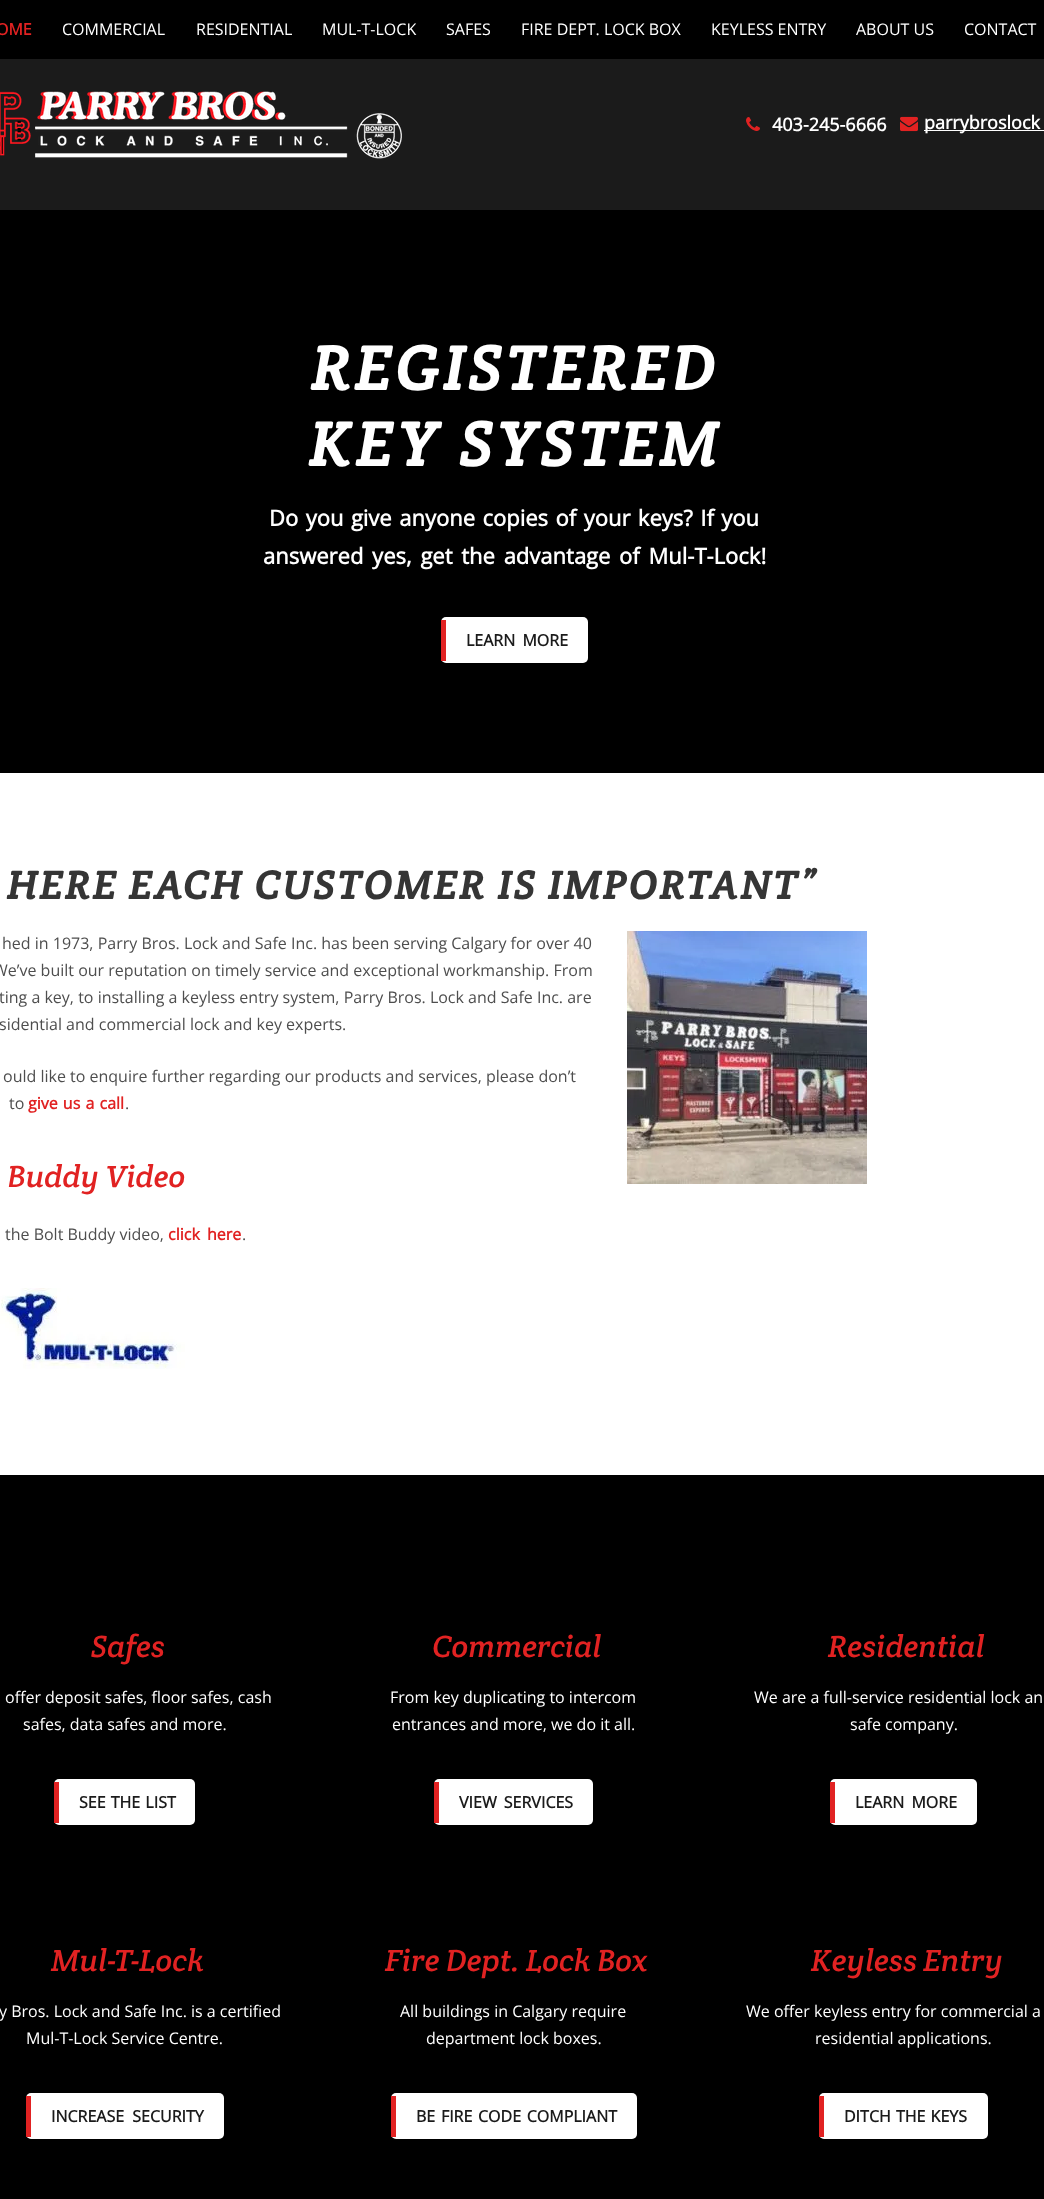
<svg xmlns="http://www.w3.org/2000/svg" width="1044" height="2199">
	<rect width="100%" height="100%" fill="#FFFFFF" />
	<rect x="0" y="0" width="1044" height="59" fill="#000000" />
	<text x="-4" y="35" font-family="Open Sans" font-size="16" font-weight="700" fill="#E12222">OME</text>
	<g font-family="Open Sans" font-size="16" fill="#FFFFFF">
		<text x="62" y="35">COMMERCIAL</text>
		<text x="196" y="35">RESIDENTIAL</text>
		<text x="322" y="35">MUL-T-LOCK</text>
		<text x="446" y="35">SAFES</text>
		<text x="521" y="35">FIRE DEPT. LOCK BOX</text>
		<text x="711" y="35">KEYLESS ENTRY</text>
		<text x="856" y="35">ABOUT US</text>
		<text x="964" y="35">CONTACT</text>
	</g>
	<rect x="0" y="59" width="1044" height="151" fill="#1B1B1B" />
	<image x="0" y="91" width="402" height="68" href="assets/img1.png" />
	<image x="746" y="117" width="14" height="14" href="assets/img2.png" />
	<text x="772" y="131" font-family="Open Sans" font-size="18" font-weight="700" fill="#FFFFFF">403-245-6666</text>
	<image x="900" y="116" width="18" height="16" href="assets/img3.png" />
	<rect x="924" y="130" width="120" height="1" fill="#FFFFFF" />
	<text x="924" y="129" font-family="Open Sans" font-size="18" font-weight="700" fill="#FFFFFF">parrybroslock</text>
	<rect x="0" y="210" width="1044" height="563" fill="#000000" />
	<g font-family="Crete Round" font-size="63" font-weight="700" font-style="italic" letter-spacing="4.5" fill="#FFFFFF">
		<text x="311" y="390">REGISTERED</text>
		<text x="309" y="466">KEY SYSTEM</text>
	</g>
	<g font-family="Open Sans" font-size="22" font-weight="700" fill="#FFFFFF">
		<text x="269" y="526" word-spacing="1.75">Do you give anyone copies of your keys? If you</text>
		<text x="263" y="564" word-spacing="3">answered yes, get the advantage of Mul-T-Lock!</text>
	</g>
	<rect x="441" y="617" width="147" height="46" rx="5" fill="#FFFFFF" />
	<rect x="441" y="620" width="5" height="41" fill="#E12222" />
	<text x="466" y="646" word-spacing="3" font-family="Open Sans" font-size="16" font-weight="700" fill="#1B1B1B">LEARN MORE</text>
	<text x="7" y="899" font-family="Crete Round" font-size="40" font-weight="700" font-style="italic" letter-spacing="2.8" fill="#353535">HERE EACH CUSTOMER IS IMPORTANT”</text>
	<g font-family="Open Sans" font-size="16" fill="#4E4E4E">
		<text x="2" y="949">hed in 1973, Parry Bros. Lock and Safe Inc. has been serving Calgary for over 40</text>
		<text x="-7" y="976">We’ve built our reputation on timely service and exceptional workmanship. From</text>
		<text x="-1" y="1003">ting a key, to installing a keyless entry system, Parry Bros. Lock and Safe Inc. are</text>
		<text x="-1" y="1030">sidential and commercial lock and key experts.</text>
		<text x="3" y="1082">ould like to enquire further regarding our products and services, please don’t</text>
		<text x="9" y="1109">to</text>
	</g>
	<text x="28" y="1109" word-spacing="1" font-family="Open Sans" font-size="16" font-weight="700" fill="#E12222">give us a call</text>
	<text x="125" y="1109" font-family="Open Sans" font-size="16" fill="#4E4E4E">.</text>
	<text x="7" y="1187" font-family="Crete Round" font-size="31" font-style="italic" fill="#E12222">Buddy Video</text>
	<text x="5" y="1240" font-family="Open Sans" font-size="16" fill="#4E4E4E">the Bolt Buddy video,</text>
	<text x="168" y="1240" word-spacing="3" font-family="Open Sans" font-size="16" font-weight="700" fill="#E12222">click here</text>
	<text x="242" y="1240" font-family="Open Sans" font-size="16" fill="#4E4E4E">.</text>
	<image x="0" y="1288" width="185" height="81" href="assets/img4.png" />
	<image x="627" y="931" width="240" height="253" href="assets/img5.png" />
	<rect x="0" y="1475" width="1044" height="724" fill="#000000" />
	<text x="91" y="1657" font-family="Crete Round" font-size="31" font-style="italic" fill="#E12222">Safes</text>
	<g font-family="Open Sans" font-size="16" fill="#FFFFFF">
		<text x="5" y="1703">offer deposit safes, floor safes, cash</text>
		<text x="23" y="1730">safes, data safes and more.</text>
	</g>
	<rect x="54" y="1779" width="141" height="46" rx="5" fill="#FFFFFF" />
	<rect x="54" y="1782" width="5" height="41" fill="#E12222" />
	<text x="79" y="1808" word-spacing="1" font-family="Open Sans" font-size="16" font-weight="700" fill="#1B1B1B">SEE THE LIST</text>
	<text x="432" y="1657" font-family="Crete Round" font-size="31" font-style="italic" fill="#E12222">Commercial</text>
	<g font-family="Open Sans" font-size="16" fill="#FFFFFF">
		<text x="390" y="1703">From key duplicating to intercom</text>
		<text x="392" y="1730">entrances and more, we do it all.</text>
	</g>
	<rect x="434" y="1779" width="159" height="46" rx="5" fill="#FFFFFF" />
	<rect x="434" y="1782" width="5" height="41" fill="#E12222" />
	<text x="459" y="1808" word-spacing="3" font-family="Open Sans" font-size="16" font-weight="700" fill="#1B1B1B">VIEW SERVICES</text>
	<text x="828" y="1657" font-family="Crete Round" font-size="31" font-style="italic" fill="#E12222">Residential</text>
	<g font-family="Open Sans" font-size="16" fill="#FFFFFF">
		<text x="754" y="1703">We are a full-service residential lock an</text>
		<text x="850" y="1730">safe company.</text>
	</g>
	<rect x="830" y="1779" width="147" height="46" rx="5" fill="#FFFFFF" />
	<rect x="830" y="1782" width="5" height="41" fill="#E12222" />
	<text x="855" y="1808" word-spacing="3" font-family="Open Sans" font-size="16" font-weight="700" fill="#1B1B1B">LEARN MORE</text>
	<text x="51" y="1971" font-family="Crete Round" font-size="31" font-style="italic" fill="#E12222">Mul-T-Lock</text>
	<g font-family="Open Sans" font-size="16" fill="#FFFFFF">
		<text x="-1" y="2017">y Bros. Lock and Safe Inc. is a certified</text>
		<text x="26" y="2044">Mul-T-Lock Service Centre.</text>
	</g>
	<rect x="26" y="2093" width="198" height="46" rx="5" fill="#FFFFFF" />
	<rect x="26" y="2096" width="5" height="41" fill="#E12222" />
	<text x="51" y="2122" word-spacing="4" font-family="Open Sans" font-size="16" font-weight="700" fill="#1B1B1B">INCREASE SECURITY</text>
	<text x="385" y="1971" font-family="Crete Round" font-size="31" font-style="italic" fill="#E12222">Fire Dept. Lock Box</text>
	<g font-family="Open Sans" font-size="16" fill="#FFFFFF">
		<text x="400" y="2017">All buildings in Calgary require</text>
		<text x="426" y="2044">department lock boxes.</text>
	</g>
	<rect x="391" y="2093" width="246" height="46" rx="5" fill="#FFFFFF" />
	<rect x="391" y="2096" width="5" height="41" fill="#E12222" />
	<text x="416" y="2122" word-spacing="1.5" font-family="Open Sans" font-size="16" font-weight="700" fill="#1B1B1B">BE FIRE CODE COMPLIANT</text>
	<text x="811" y="1971" font-family="Crete Round" font-size="31" font-style="italic" fill="#E12222">Keyless Entry</text>
	<g font-family="Open Sans" font-size="16" fill="#FFFFFF">
		<text x="746" y="2017">We offer keyless entry for commercial a</text>
		<text x="815" y="2044">residential applications.</text>
	</g>
	<rect x="819" y="2093" width="169" height="46" rx="5" fill="#FFFFFF" />
	<rect x="819" y="2096" width="5" height="41" fill="#E12222" />
	<text x="844" y="2122" word-spacing="1" font-family="Open Sans" font-size="16" font-weight="700" fill="#1B1B1B">DITCH THE KEYS</text>
</svg>
